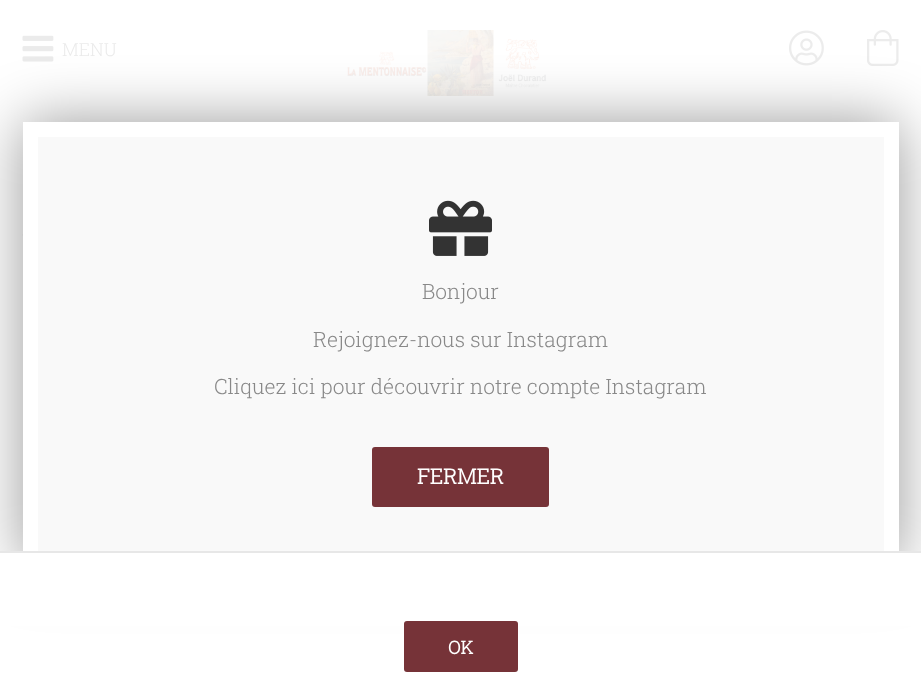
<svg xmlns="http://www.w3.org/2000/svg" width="921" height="687">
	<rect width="100%" height="100%" fill="#FFFFFF" />
	<image x="22" y="35" width="32" height="27" href="assets/img1.png" />
	<text x="62" y="56" font-family="Roboto Slab" font-size="18" font-weight="300" fill="#EBEBEB">MENU</text>
	<image x="347" y="30" width="200" height="66" href="assets/img2.png" />
	<image x="789" y="30" width="35" height="36" href="assets/img3.png" />
	<image x="867" y="30" width="32" height="36" href="assets/img4.png" />
	<image x="22" y="234" width="1" height="2" href="assets/img5.png" />
	<rect x="23" y="122" width="876" height="445" fill="#000000" fill-opacity="0.4" filter="blur(30px)" />
	<rect x="38" y="137" width="846" height="414" fill="#F9F9F9" />
	<rect x="30.5" y="129.5" width="861" height="430" fill="none" stroke="#FFFFFF" stroke-width="15" />
	<image x="429" y="200" width="63" height="56" href="assets/img6.png" />
	<g font-family="Roboto Slab" font-size="21" font-weight="300" fill="#888888">
		<text x="422" y="299">Bonjour</text>
		<text x="313" y="347">Rejoignez-nous sur Instagram</text>
		<text x="214" y="394">Cliquez ici pour découvrir notre compte Instagram</text>
	</g>
	<rect x="372" y="447" width="177" height="60" rx="3" fill="#763338" />
	<text x="417" y="484" font-family="Roboto Slab" font-size="21" font-weight="700" fill="#FFFFFF">FERMER</text>
	<rect x="0" y="553" width="921" height="73" fill="#FFFFFF" />
	<rect x="0" y="551" width="921" height="2" fill="#E7E7E7" />
	<rect x="404" y="621" width="114" height="51" rx="3" fill="#763338" />
	<text x="448" y="654" font-family="Roboto Slab" font-size="18" font-weight="700" fill="#FFFFFF">OK</text>
</svg>
